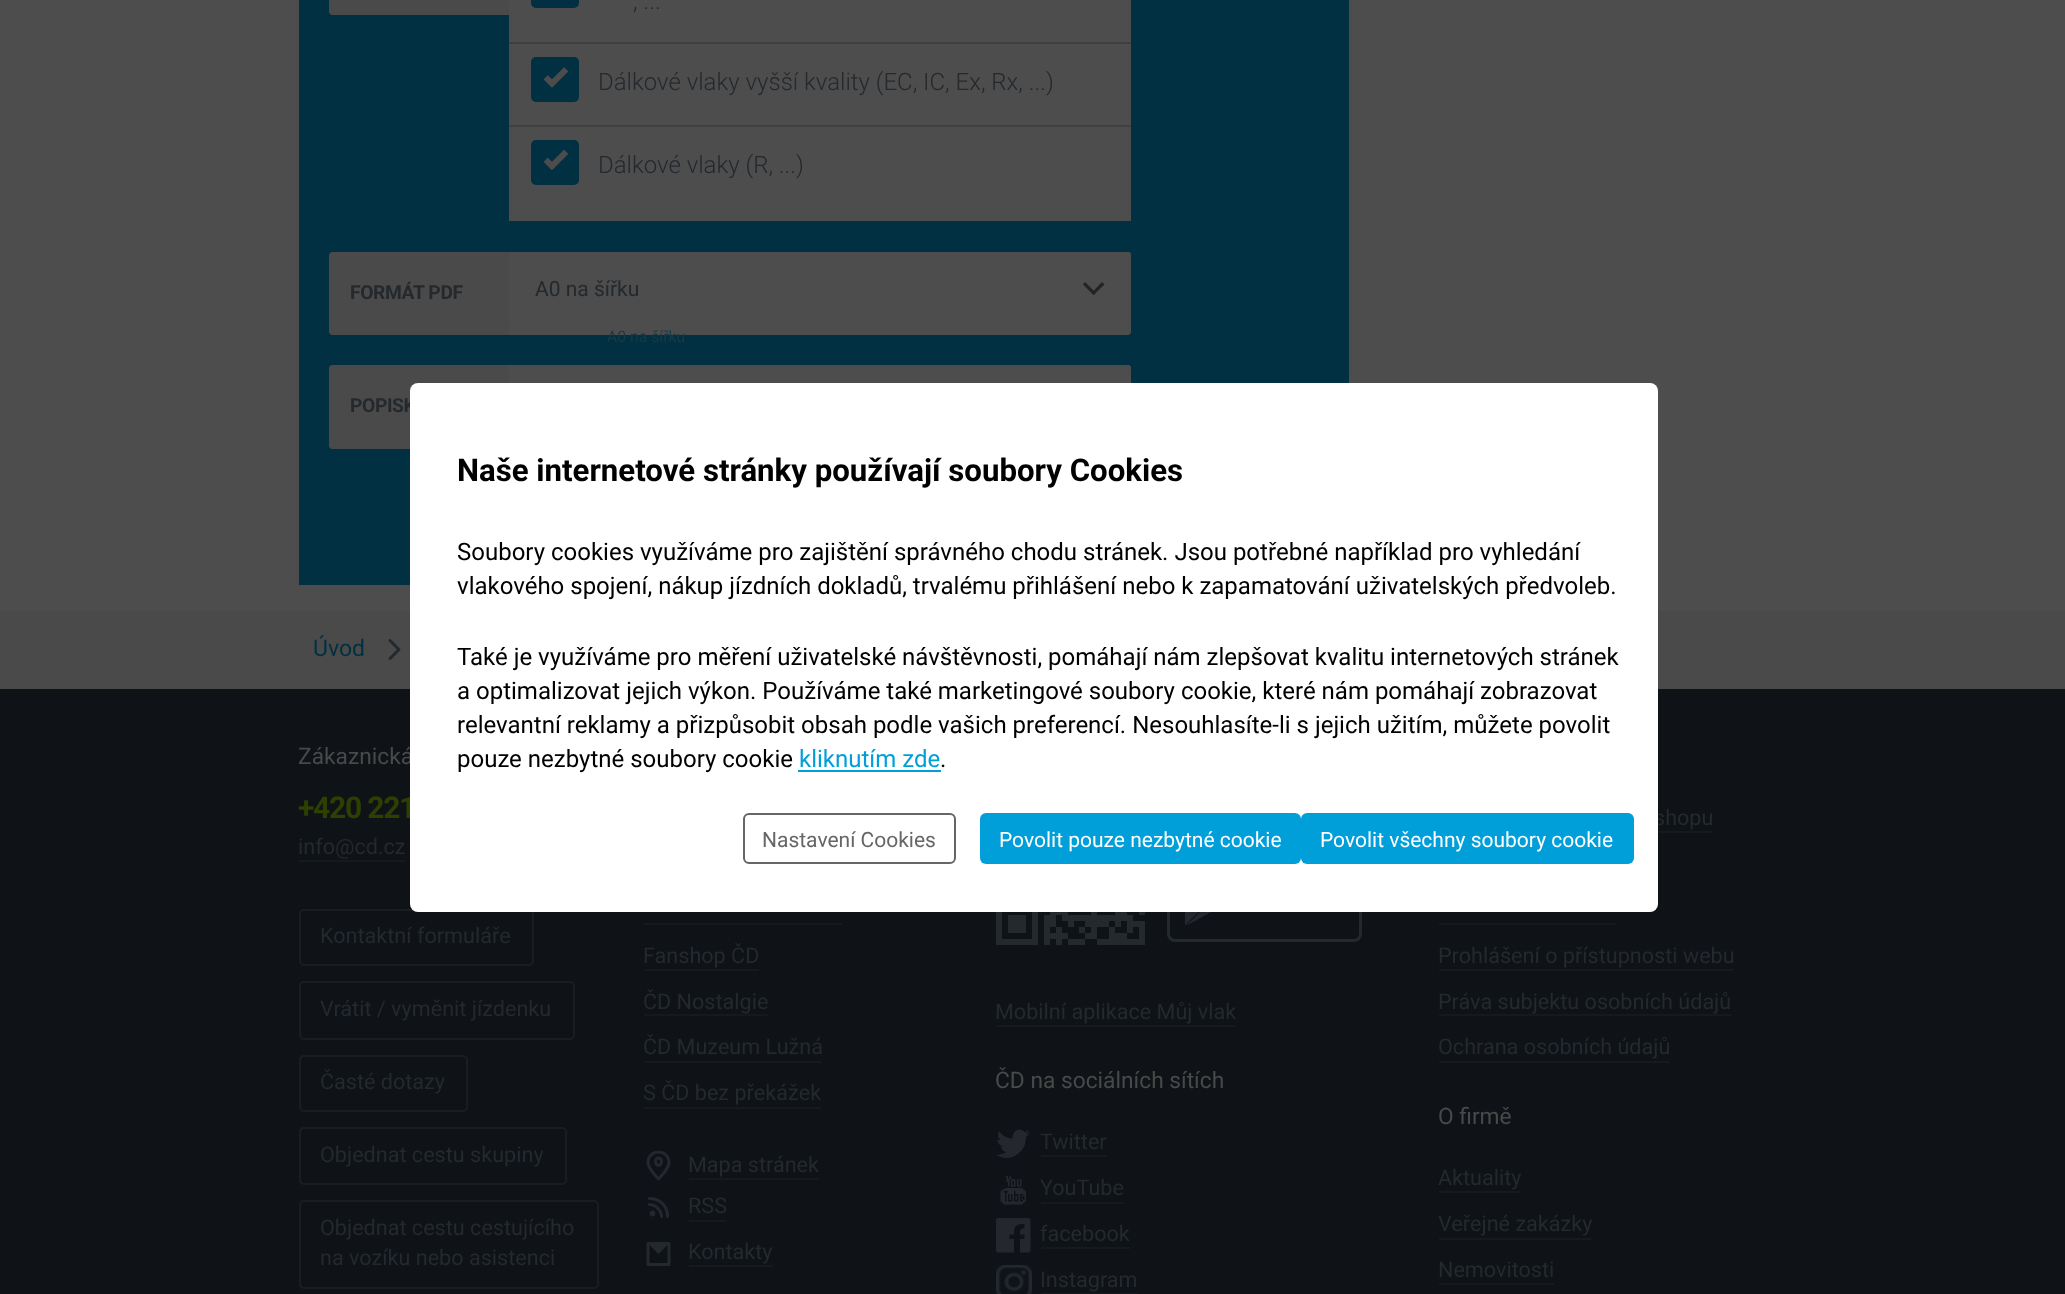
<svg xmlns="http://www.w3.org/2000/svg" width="2065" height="1294">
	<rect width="100%" height="100%" fill="#4D4D4D" />
	<rect x="299" y="0" width="1050" height="585" fill="#003041" />
	<path d="M332-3H509V15H332C330.5 15 329 13.5 329 12V0C329-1.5 330.5-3 332-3Z" fill="#4A4A4A" />
	<rect x="509" y="0" width="622" height="42" fill="#4D4D4D" />
	<rect x="532.5" y="-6.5" width="45" height="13" rx="3.5" fill="#003041" stroke="#003041" stroke-width="3" />
	<text x="633" y="9" font-family="Roboto" font-size="24" font-weight="300" fill="#24292E">, ...</text>
	<rect x="509" y="44" width="622" height="81" fill="#4D4D4D" />
	<rect x="509" y="42" width="622" height="2" fill="#3E4042" />
	<rect x="532.5" y="58.5" width="45" height="42" rx="3.5" fill="#003041" stroke="#003041" stroke-width="3" />
	<image x="543" y="67" width="26" height="21" href="assets/img1.png" />
	<text x="598" y="90" font-family="Roboto" font-size="24" font-weight="300" fill="#24292E">Dálkové vlaky vyšší kvality (EC, IC, Ex, Rx, ...)</text>
	<rect x="509" y="127" width="622" height="94" fill="#4D4D4D" />
	<rect x="509" y="125" width="622" height="2" fill="#3E4042" />
	<rect x="532.5" y="141.5" width="45" height="42" rx="3.5" fill="#003041" stroke="#003041" stroke-width="3" />
	<image x="543" y="149" width="26" height="22" href="assets/img2.png" />
	<text x="598" y="173" font-family="Roboto" font-size="24" font-weight="300" fill="#24292E">Dálkové vlaky (R, ...)</text>
	<path d="M332 252H509V335H332C330.5 335 329 333.5 329 332V255C329 253.5 330.5 252 332 252Z" fill="#4A4A4A" />
	<text x="350" y="299" font-family="Roboto" font-size="19.25" font-weight="700" letter-spacing="-0.4" fill="#24292E">FORMÁT PDF</text>
	<path d="M509 252H1128C1129.5 252 1131 253.5 1131 255V332C1131 333.5 1129.5 335 1128 335H509Z" fill="#4D4D4D" />
	<rect x="510" y="253" width="620" height="73" rx="2" fill="#4D4D4D" stroke="#4D4D4D" stroke-width="2" />
	<text x="535" y="296" font-family="Roboto" font-size="21" fill="#24292E">A0 na šířku</text>
	<path d="M1102 282L1104.5 284.5L1093.5 295L1091.5 293Z" fill="#242424" />
	<path d="M1085 282L1096 293L1093.5 295L1083 284.5Z" fill="#242424" />
	<text x="607" y="342" font-family="Roboto" font-size="15.75" fill="#193945">A0 na šířku</text>
	<path d="M332 365H509V449H332C330.5 449 329 447.5 329 446V368C329 366.5 330.5 365 332 365Z" fill="#4A4A4A" />
	<text x="350" y="412" font-family="Roboto" font-size="19.25" font-weight="700" letter-spacing="-0.4" fill="#24292E">POPISK</text>
	<path d="M509 365H1128C1129.5 365 1131 366.5 1131 368V444C1131 445.5 1129.5 447 1128 447H509Z" fill="#4D4D4D" />
	<rect x="510" y="366" width="620" height="73" rx="2" fill="#4D4D4D" stroke="#4D4D4D" stroke-width="2" />
	<rect x="0" y="611" width="2065" height="78" fill="#4A4A4A" />
	<path d="M390 658.5L399 649.5M399 649.5L390 640.5" fill="none" stroke="#24292E" stroke-width="3" stroke-linecap="round" stroke-linejoin="round" />
	<text x="313" y="656" font-family="Roboto" font-size="23" fill="#003041">Úvod</text>
	<rect x="0" y="689" width="2065" height="605" fill="#0F1317" />
	<text x="298" y="764" font-family="Roboto" font-size="22.75" fill="#484949">Zákaznická</text>
	<text x="298" y="818" font-family="Roboto" font-size="30" font-weight="700" letter-spacing="-1.25" fill="#2C4000">+420 221</text>
	<rect x="300" y="910" width="233" height="55" rx="4" fill="none" stroke="#1A1E23" stroke-width="2" />
	<image x="1185" y="912" width="26" height="14" href="assets/img6.png" />
	<rect x="1168.5" y="879.5" width="192" height="61" rx="6.5" fill="none" stroke="#24292E" stroke-width="3" />
	<text x="1654" y="825" font-family="Roboto" font-size="21.6" fill="#24292E">shopu</text>
	<rect x="410" y="383" width="1248" height="529" rx="8" fill="#FFFFFF" />
	<text x="457" y="481" font-family="Roboto" font-size="31.2" font-weight="700" fill="#000000">Naše internetové stránky používají soubory Cookies</text>
	<g font-family="Roboto" font-size="24" fill="#000000">
		<text x="457" y="560">Soubory cookies využíváme pro zajištění správného chodu stránek. Jsou potřebné například pro vyhledání</text>
		<text x="457" y="594">vlakového spojení, nákup jízdních dokladů, trvalému přihlášení nebo k zapamatování uživatelských předvoleb.</text>
		<text x="457" y="665">Také je využíváme pro měření uživatelské návštěvnosti, pomáhají nám zlepšovat kvalitu internetových stránek</text>
		<text x="457" y="699">a optimalizovat jejich výkon. Používáme také marketingové soubory cookie, které nám pomáhají zobrazovat</text>
		<text x="457" y="733">relevantní reklamy a přizpůsobit obsah podle vašich preferencí. Nesouhlasíte-li s jejich užitím, můžete povolit</text>
		<text x="457" y="767">pouze nezbytné soubory cookie</text>
	</g>
	<text x="799" y="767" font-family="Roboto" font-size="24" fill="#009FDA">kliknutím zde</text>
	<rect x="798" y="770" width="143" height="2" fill="#009FDA" />
	<text x="940" y="767" font-family="Roboto" font-size="24" fill="#000000">.</text>
	<rect x="744" y="814" width="211" height="49" rx="5" fill="none" stroke="#666666" stroke-width="2" />
	<text x="762" y="847" font-family="Roboto" font-size="21" fill="#666666">Nastavení Cookies</text>
	<rect x="980" y="813" width="321" height="51" rx="6" fill="#009FDA" />
	<text x="999" y="847" font-family="Roboto" font-size="21" fill="#FFFFFF">Povolit pouze nezbytné cookie</text>
	<rect x="1301" y="813" width="333" height="51" rx="6" fill="#009FDA" />
	<text x="1320" y="847" font-family="Roboto" font-size="21" fill="#FFFFFF">Povolit všechny soubory cookie</text>
	<text x="298" y="854" font-family="Roboto" font-size="21.6" fill="#24292E">info@cd.cz</text>
	<rect x="299" y="860" width="106" height="2" fill="#161A1E" />
	<text x="320" y="943" font-family="Roboto" font-size="21.6" fill="#24292E">Kontaktní formuláře</text>
	<rect x="300" y="982" width="274" height="57" rx="4" fill="none" stroke="#1A1E23" stroke-width="2" />
	<text x="320" y="1016" font-family="Roboto" font-size="21.6" fill="#24292E">Vrátit / vyměnit jízdenku</text>
	<rect x="300" y="1056" width="167" height="55" rx="4" fill="none" stroke="#1A1E23" stroke-width="2" />
	<text x="320" y="1089" font-family="Roboto" font-size="21.6" fill="#24292E">Časté dotazy</text>
	<rect x="300" y="1128" width="266" height="56" rx="4" fill="none" stroke="#1A1E23" stroke-width="2" />
	<text x="320" y="1162" font-family="Roboto" font-size="21.6" fill="#24292E">Objednat cestu skupiny</text>
	<rect x="300" y="1201" width="298" height="87" rx="4" fill="none" stroke="#1A1E23" stroke-width="2" />
	<g font-family="Roboto" font-size="21.6" fill="#24292E">
		<text x="320" y="1235">Objednat cestu cestujícího</text>
		<text x="320" y="1265">na vozíku nebo asistenci</text>
	</g>
	<rect x="644" y="923" width="198" height="2" fill="#161A1E" />
	<text x="643" y="963" font-family="Roboto" font-size="21.6" fill="#24292E">Fanshop ČD</text>
	<rect x="644" y="969" width="115" height="2" fill="#161A1E" />
	<text x="643" y="1009" font-family="Roboto" font-size="21.6" fill="#24292E">ČD Nostalgie</text>
	<rect x="644" y="1014" width="124" height="2" fill="#161A1E" />
	<text x="643" y="1054" font-family="Roboto" font-size="21.6" fill="#24292E">ČD Muzeum Lužná</text>
	<rect x="644" y="1061" width="178" height="2" fill="#161A1E" />
	<text x="643" y="1100" font-family="Roboto" font-size="21.6" fill="#24292E">S ČD bez překážek</text>
	<rect x="644" y="1107" width="177" height="2" fill="#161A1E" />
	<image x="646" y="1151" width="25" height="30" href="assets/img3.png" />
	<text x="688" y="1172" font-family="Roboto" font-size="21.6" fill="#24292E">Mapa stránek</text>
	<rect x="689" y="1178" width="130" height="2" fill="#161A1E" />
	<image x="648" y="1197" width="21" height="21" href="assets/img4.png" />
	<text x="688" y="1213" font-family="Roboto" font-size="21.6" fill="#24292E">RSS</text>
	<rect x="689" y="1220" width="37" height="2" fill="#161A1E" />
	<path d="M669 1264.5H648V1243.5H669Z" fill="none" stroke="#24292E" stroke-width="3" stroke-linecap="round" stroke-linejoin="round" />
	<path d="M658.5 1254L648 1243.5H669Z" fill="#24292E" />
	<text x="688" y="1259" font-family="Roboto" font-size="21.6" fill="#24292E">Kontakty</text>
	<rect x="689" y="1265" width="84" height="2" fill="#161A1E" />
	<image x="996" y="912" width="149" height="33" href="assets/img5.png" />
	<text x="995" y="1019" font-family="Roboto" font-size="21.6" fill="#24292E">Mobilní aplikace Můj vlak</text>
	<rect x="996" y="1025" width="240" height="2" fill="#161A1E" />
	<text x="995" y="1088" font-family="Roboto" font-size="22.75" fill="#484949">ČD na sociálních sítích</text>
	<image x="996" y="1129" width="35" height="29" href="assets/img7.png" />
	<text x="1040" y="1149" font-family="Roboto" font-size="21.6" fill="#24292E">Twitter</text>
	<rect x="1041" y="1155" width="66" height="2" fill="#161A1E" />
	<image x="1000" y="1176" width="26" height="29" href="assets/img8.png" />
	<text x="1040" y="1195" font-family="Roboto" font-size="21.6" fill="#24292E">YouTube</text>
	<rect x="1041" y="1202" width="83" height="2" fill="#161A1E" />
	<image x="996" y="1218" width="35" height="35" href="assets/img9.png" />
	<text x="1040" y="1241" font-family="Roboto" font-size="21.6" fill="#24292E">facebook</text>
	<rect x="1041" y="1247" width="89" height="2" fill="#161A1E" />
	<image x="996" y="1265" width="36" height="29" href="assets/img10.png" />
	<text x="1040" y="1287" font-family="Roboto" font-size="21.6" fill="#24292E">Instagram</text>
	<rect x="1041" y="1293" width="96" height="1" fill="#161A1E" />
	<rect x="1658" y="831" width="55" height="2" fill="#161A1E" />
	<rect x="1439" y="923" width="177" height="2" fill="#161A1E" />
	<text x="1438" y="963" font-family="Roboto" font-size="21.6" fill="#24292E">Prohlášení o přístupnosti webu</text>
	<rect x="1439" y="969" width="295" height="2" fill="#161A1E" />
	<text x="1438" y="1009" font-family="Roboto" font-size="21.6" fill="#24292E">Práva subjektu osobních údajů</text>
	<rect x="1439" y="1014" width="292" height="2" fill="#161A1E" />
	<text x="1438" y="1054" font-family="Roboto" font-size="21.6" fill="#24292E">Ochrana osobních údajů</text>
	<rect x="1439" y="1061" width="231" height="2" fill="#161A1E" />
	<text x="1438" y="1124" font-family="Roboto" font-size="22.75" fill="#484949">O firmě</text>
	<text x="1438" y="1185" font-family="Roboto" font-size="21.6" fill="#24292E">Aktuality</text>
	<rect x="1439" y="1191" width="82" height="2" fill="#161A1E" />
	<text x="1438" y="1231" font-family="Roboto" font-size="21.6" fill="#24292E">Veřejné zakázky</text>
	<rect x="1439" y="1238" width="153" height="2" fill="#161A1E" />
	<text x="1438" y="1277" font-family="Roboto" font-size="21.6" fill="#24292E">Nemovitosti</text>
	<rect x="1439" y="1283" width="115" height="2" fill="#161A1E" />
</svg>
